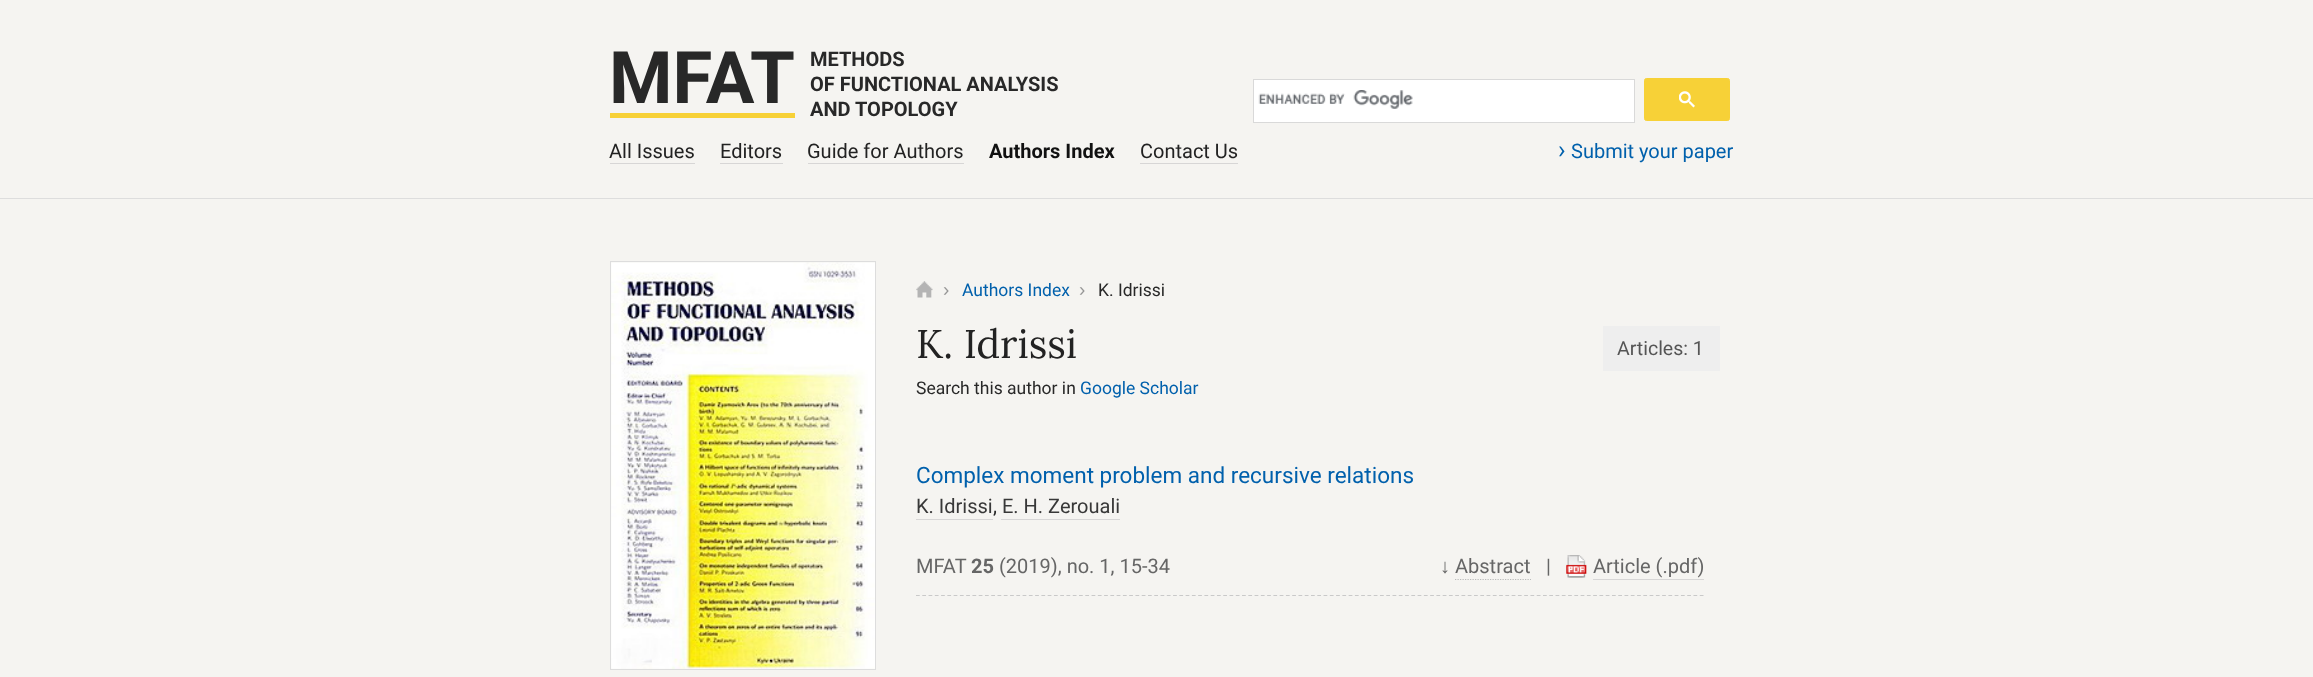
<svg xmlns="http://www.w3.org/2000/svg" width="2313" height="677">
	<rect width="100%" height="100%" fill="#F5F4F1" />
	<rect x="0" y="198" width="2313" height="1" fill="#DDDDDD" />
	<rect x="610" y="113" width="185" height="5" fill="#F7D137" />
	<text x="609" y="103" font-family="Roboto" font-size="72.5" font-weight="700" fill="#282828">MFAT</text>
	<g font-family="Roboto" font-size="20" font-weight="700" fill="#282828">
		<text x="810" y="66">METHODS</text>
		<text x="810" y="91">OF FUNCTIONAL ANALYSIS</text>
		<text x="810" y="116">AND TOPOLOGY</text>
	</g>
	<rect x="1253.5" y="79.5" width="381" height="43" fill="#FFFFFF" stroke="#D9D9D9" />
	<image x="1258" y="90" width="155" height="19" href="assets/img1.png" />
	<rect x="1644.5" y="78.5" width="85" height="42" rx="2" fill="#F7D137" stroke="#F7D137" />
	<image x="1679" y="91" width="16" height="17" href="assets/img2.png" />
	<text x="609" y="158" font-family="Roboto" font-size="20" fill="#222222">All Issues</text>
	<rect x="610" y="163" width="85" height="1" fill="#D7D6D6" />
	<text x="720" y="158" font-family="Roboto" font-size="20" fill="#222222">Editors</text>
	<rect x="720" y="163" width="63" height="1" fill="#D7D6D6" />
	<text x="807" y="158" font-family="Roboto" font-size="20" fill="#222222">Guide for Authors</text>
	<rect x="808" y="163" width="156" height="1" fill="#D7D6D6" />
	<text x="989" y="158" font-family="Roboto" font-size="20" font-weight="700" fill="#111111">Authors Index</text>
	<text x="1140" y="158" font-family="Roboto" font-size="20" fill="#222222">Contact Us</text>
	<rect x="1140" y="163" width="98" height="1" fill="#D7D6D6" />
	<text x="1558" y="158" font-family="Roboto" font-size="25" fill="#0060AC">›</text>
	<text x="1571" y="158" font-family="Roboto" font-size="20" fill="#0060AC">Submit your paper</text>
	<rect x="610.5" y="261.5" width="265" height="408" fill="none" stroke="#DDDDDD" />
	<image x="611" y="262" width="264" height="407" href="assets/img3.png" />
	<image x="916" y="281" width="17" height="17" href="assets/img4.png" />
	<text x="943" y="296" font-family="Liberation Sans" font-size="19" fill="#969696">›</text>
	<text x="962" y="296" font-family="Roboto" font-size="17.5" fill="#0060AC">Authors Index</text>
	<text x="1079" y="296" font-family="Liberation Sans" font-size="19" fill="#969696">›</text>
	<text x="1098" y="296" font-family="Roboto" font-size="17.5" fill="#282828">K. Idrissi</text>
	<text x="916" y="358" font-family="Lora" font-size="40" fill="#222222">K. Idrissi</text>
	<rect x="1603" y="326" width="117" height="45" fill="#EEEEEE" />
	<text x="1617" y="355" font-family="Roboto" font-size="19.5" fill="#555555">Articles: 1</text>
	<text x="916" y="394" font-family="Roboto" font-size="17.5" fill="#282828">Search this author in</text>
	<text x="1080" y="394" font-family="Roboto" font-size="17.5" fill="#0060AC">Google Scholar</text>
	<text x="916" y="483" font-family="Roboto" font-size="22.5" fill="#0060AC">Complex moment problem and recursive relations</text>
	<text x="916" y="513" font-family="Roboto" font-size="20" fill="#383838">K. Idrissi</text>
	<rect x="916" y="519" width="77" height="1" fill="#D7D6D6" />
	<text x="993" y="513" font-family="Roboto" font-size="20" fill="#282828">,</text>
	<text x="1002" y="513" font-family="Roboto" font-size="20" fill="#383838">E. H. Zerouali</text>
	<rect x="1001" y="519" width="119" height="1" fill="#D7D6D6" />
	<text x="916" y="573" font-family="Roboto" font-size="20" fill="#666666">MFAT</text>
	<text x="971" y="573" font-family="Roboto" font-size="20" font-weight="700" fill="#666666">25</text>
	<text x="999" y="573" font-family="Roboto" font-size="20" fill="#666666">(2019), no. 1, 15-34</text>
	<text x="1440" y="573" font-family="Liberation Sans" font-size="20" fill="#666666">↓</text>
	<text x="1455" y="573" font-family="Roboto" font-size="20" fill="#666666">Abstract</text>
	<path d="M1455 579.5H1531" fill="none" stroke="#BBBBBB" stroke-width="1.2" stroke-dasharray="1.25 1.25" />
	<text x="1546" y="573" font-family="Roboto" font-size="20" fill="#666666">|</text>
	<image x="1566" y="555" width="21" height="23" href="assets/img5.png" />
	<text x="1593" y="573" font-family="Roboto" font-size="20" fill="#666666">Article (.pdf)</text>
	<rect x="1593" y="579" width="111" height="1" fill="#D7D6D6" />
	<path d="M916 595.5H1704" fill="none" stroke="#C9C9C9" stroke-width="1.2" stroke-dasharray="3.75 2.52" />
</svg>
